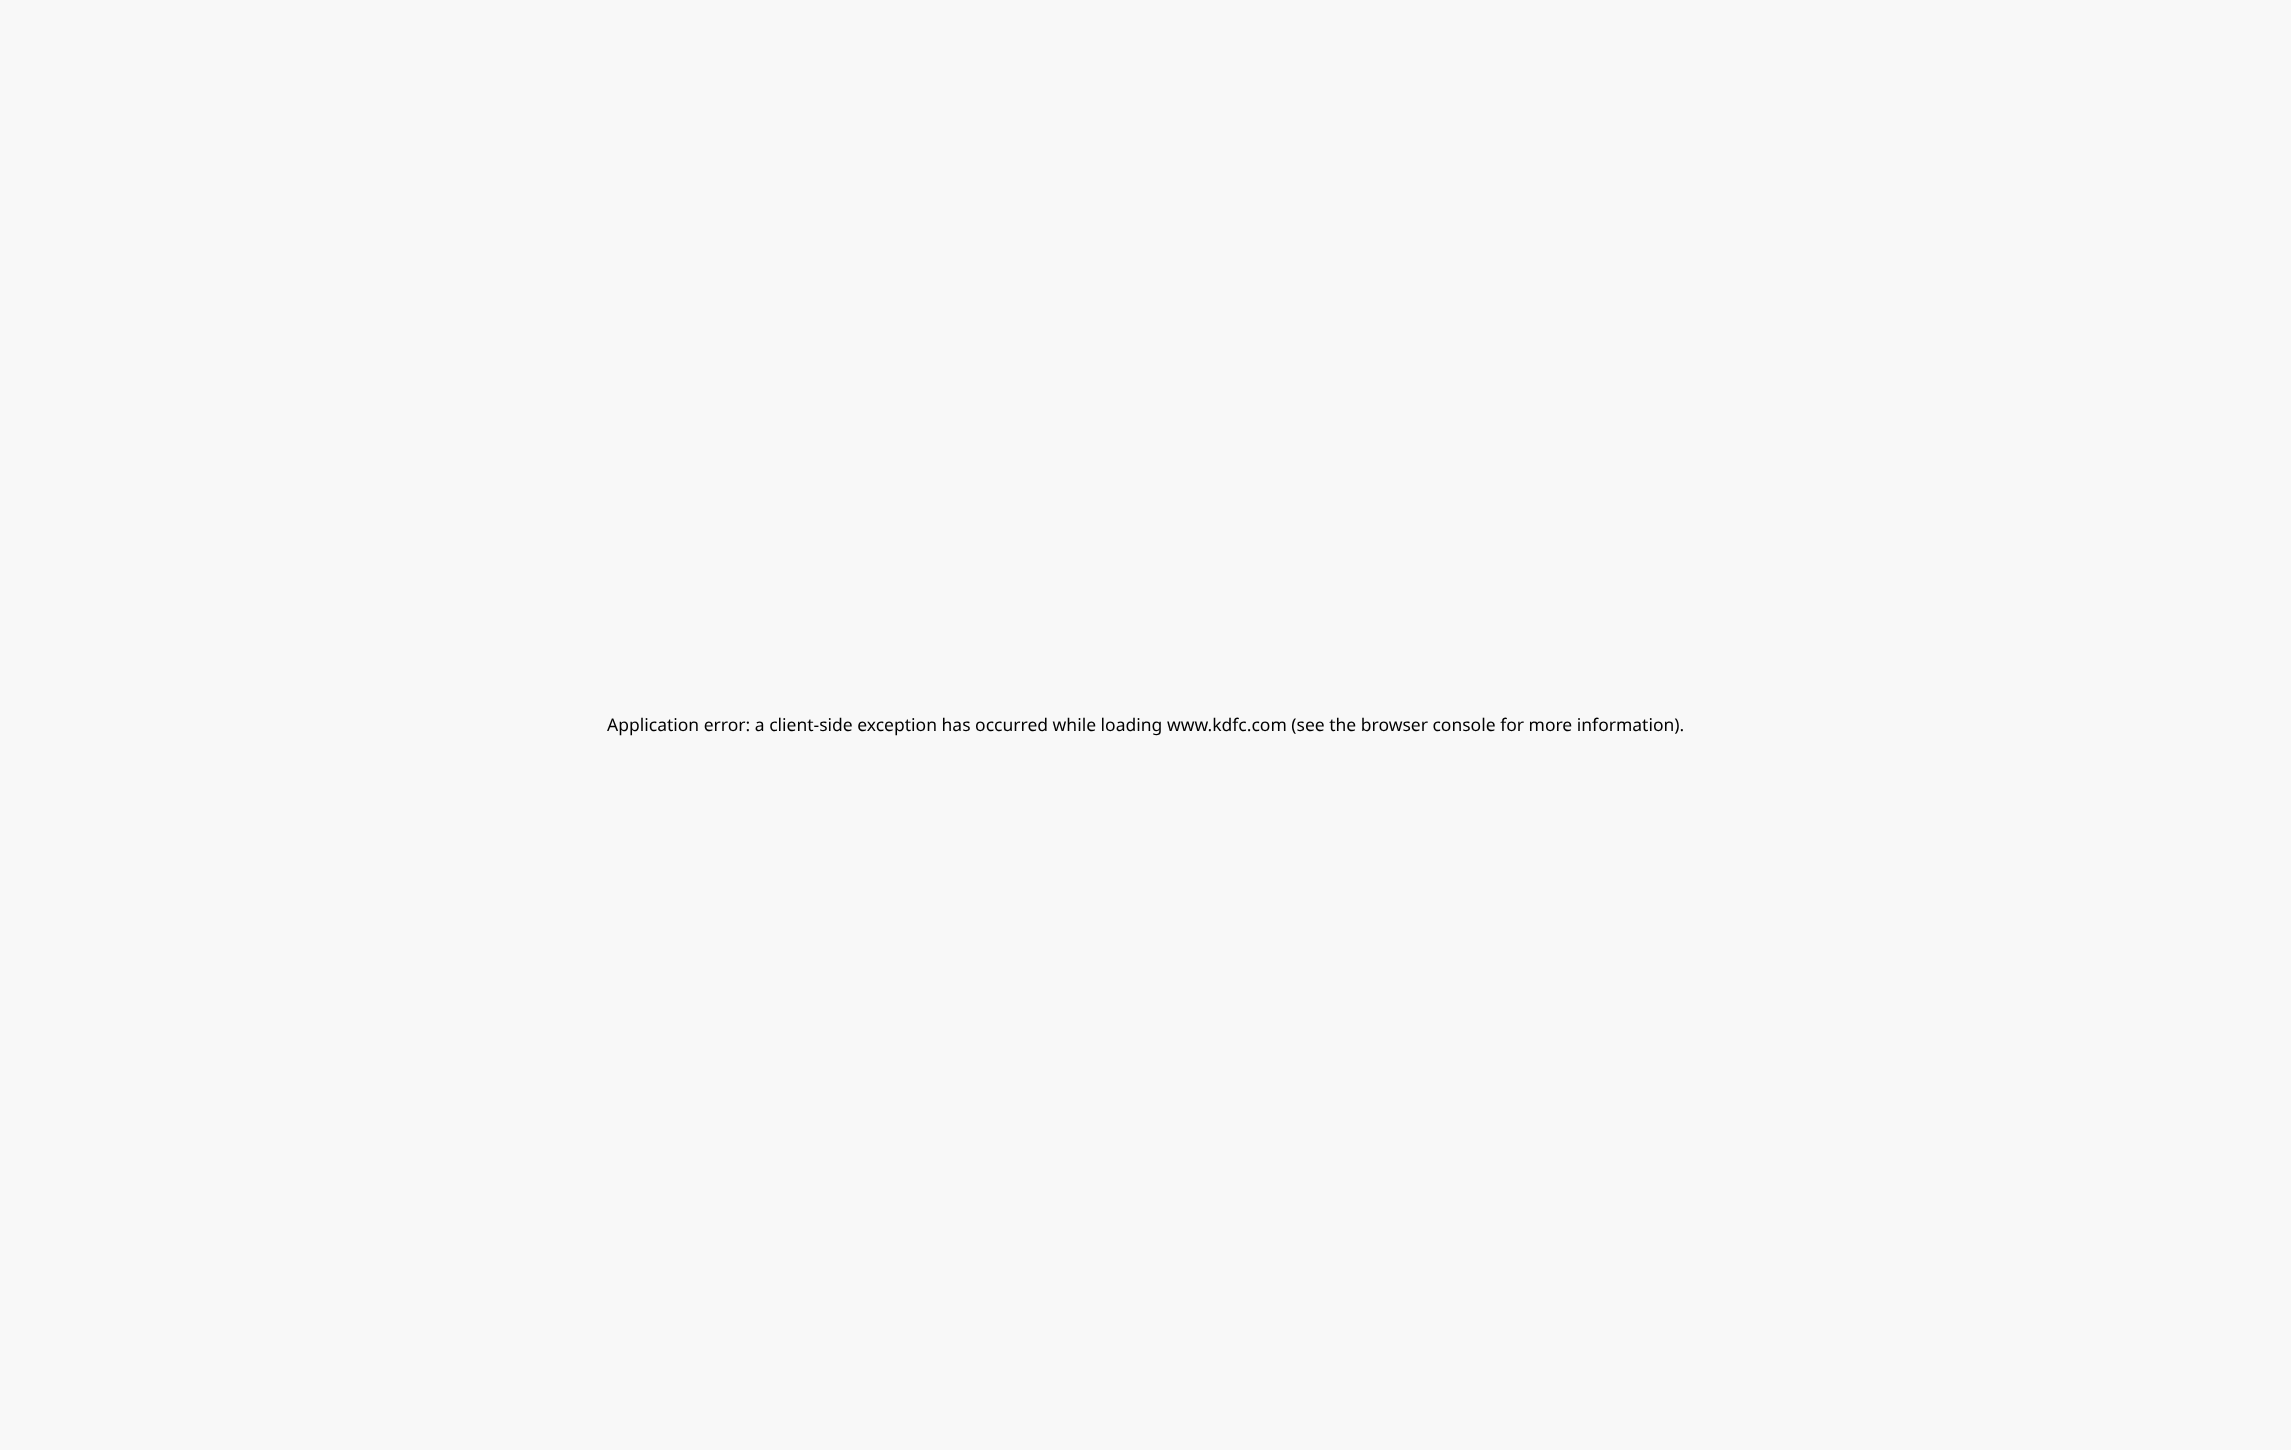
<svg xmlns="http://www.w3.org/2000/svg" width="2291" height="1450">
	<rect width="100%" height="100%" fill="#F8F8F8" />
	<text x="607" y="731" font-family="Noto Sans" font-size="17.5" fill="#000000">Application error: a client-side exception has occurred while loading www.kdfc.com (see the browser console for more information).</text>
</svg>
